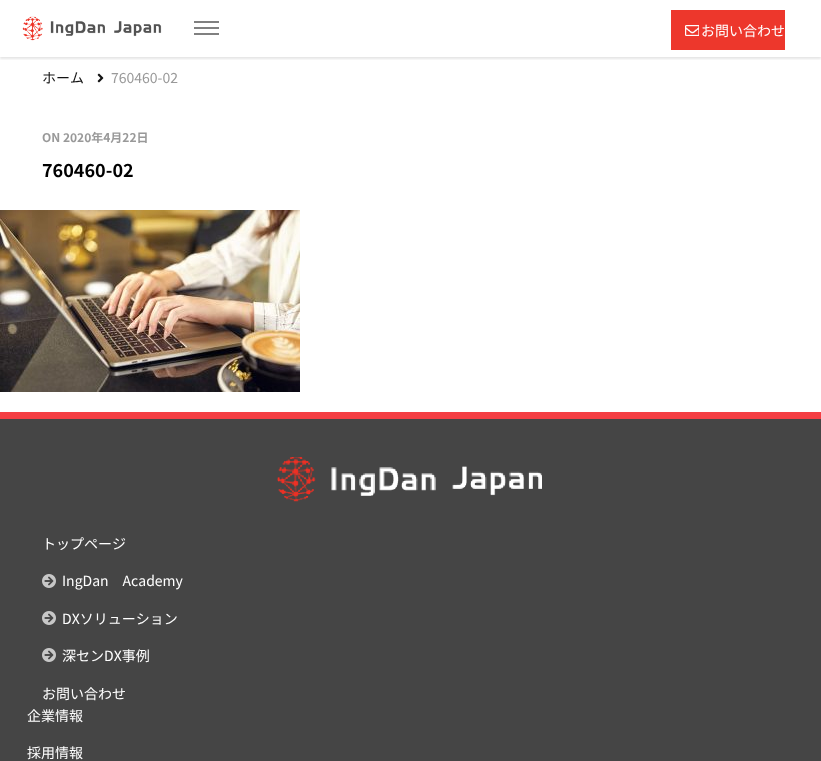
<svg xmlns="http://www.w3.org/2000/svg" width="821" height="761">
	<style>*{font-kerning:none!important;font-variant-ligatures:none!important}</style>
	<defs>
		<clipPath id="clip1"><rect x="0" y="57" width="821" height="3" /></clipPath>
	</defs>
	<rect width="100%" height="100%" fill="#FFFFFF" />
	<g clip-path="url(#clip1)">
		<rect x="0" y="2" width="821" height="57" fill="#000000" fill-opacity="0.1" filter="blur(1px)" />
	</g>
	<image x="22" y="16" width="140" height="25" href="assets/img1.png" />
	<rect x="194" y="21" width="25" height="2" fill="#808080" />
	<rect x="194" y="27" width="25" height="2" fill="#808080" />
	<rect x="194" y="33" width="25" height="2" fill="#808080" />
	<rect x="671" y="10" width="114" height="40" fill="#ED372C" />
	<image x="685" y="25" width="14" height="11" href="assets/img2.png" />
	<text x="701" y="36" font-family="Noto Sans JP" font-size="14" fill="#FFFFFF">お問い合わせ</text>
	<text x="42" y="83" font-family="Noto Sans JP" font-size="14" fill="#121212">ホーム</text>
	<image x="97" y="73" width="7" height="10" href="assets/img3.png" />
	<text x="111" y="83" font-family="Noto Sans JP" font-size="14" fill="#999999">760460-02</text>
	<text x="42" y="142" font-family="Noto Sans JP" font-size="12" font-weight="700" fill="#999999">ON 2020年4月22日</text>
	<text x="42" y="177" font-family="Noto Sans JP" font-size="18" font-weight="700" fill="#000000">760460-02</text>
	<image x="0" y="210" width="300" height="182" href="assets/img4.png" />
	<rect x="0" y="419" width="821" height="342" fill="#454545" />
	<rect x="0" y="412" width="821" height="7" fill="#F43E43" />
	<image x="277" y="457" width="265" height="45" href="assets/img5.png" />
	<text x="42" y="549" font-family="Noto Sans JP" font-size="14" fill="#FFFFFF">トップページ</text>
	<image x="42" y="574" width="14" height="14" href="assets/img6.png" />
	<text x="62" y="586" font-family="Noto Sans JP" font-size="14" fill="#FFFFFF">IngDan　Academy</text>
	<image x="42" y="611" width="14" height="14" href="assets/img6.png" />
	<text x="62" y="624" font-family="Noto Sans JP" font-size="14" fill="#FFFFFF">DXソリューション</text>
	<image x="42" y="648" width="14" height="14" href="assets/img6.png" />
	<g font-family="Noto Sans JP" font-size="14" fill="#FFFFFF">
		<text x="62" y="661">深センDX事例</text>
		<text x="42" y="699">お問い合わせ</text>
		<text x="27" y="721">企業情報</text>
		<text x="27" y="758">採用情報</text>
	</g>
</svg>
